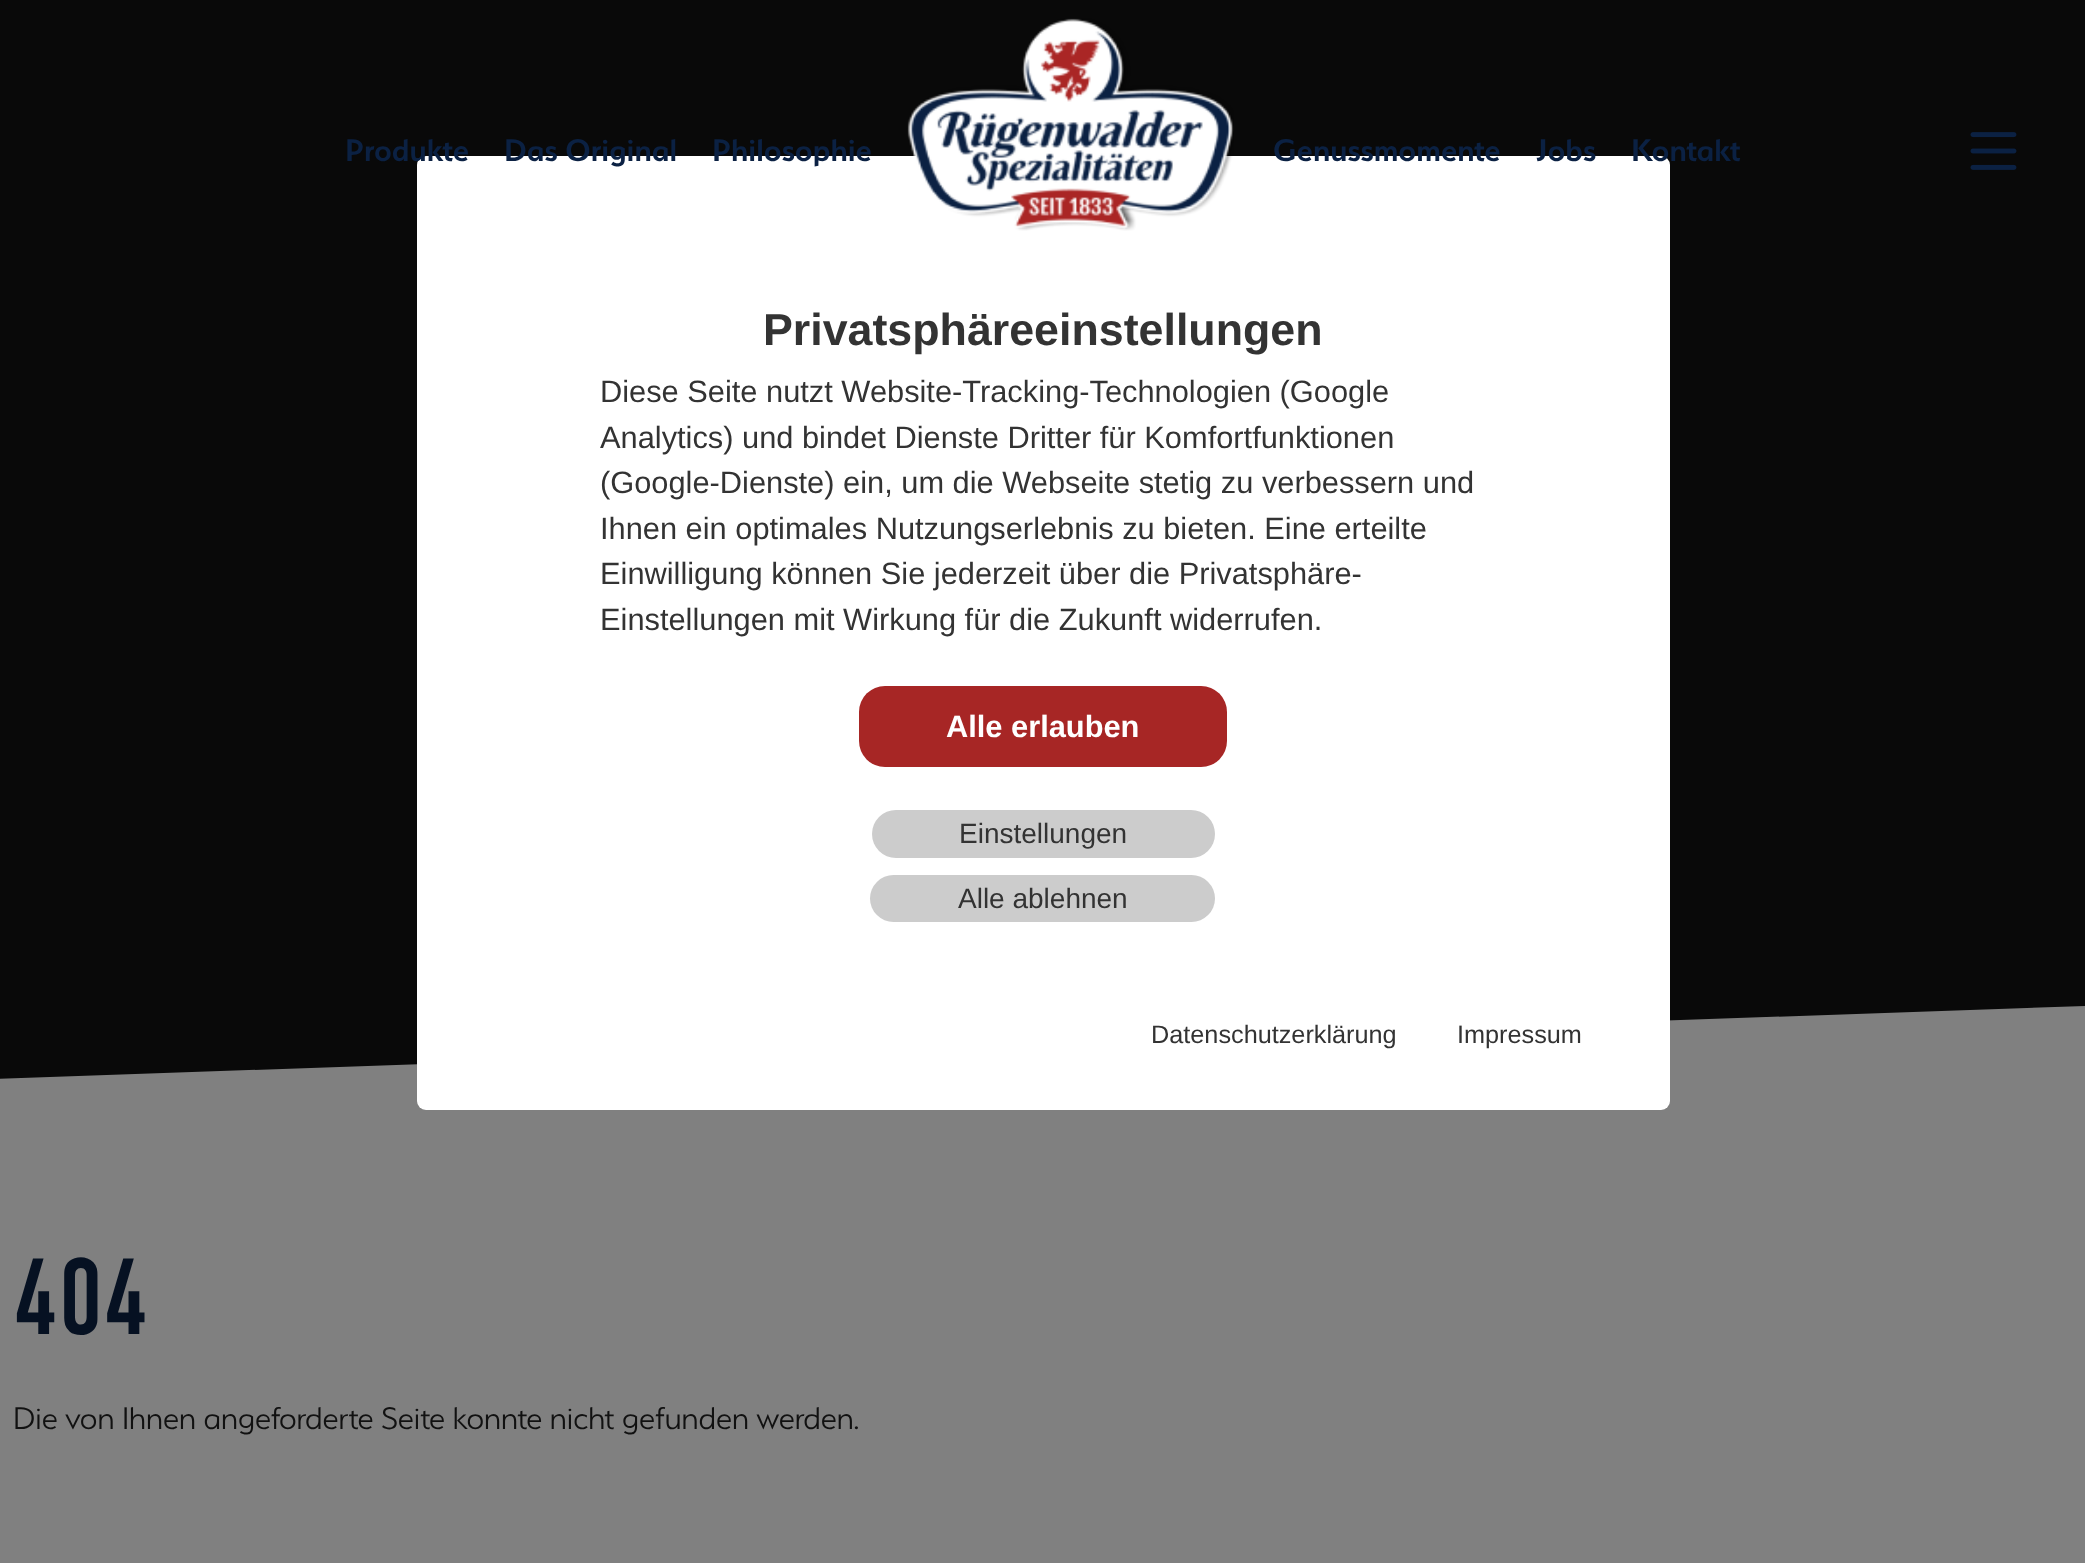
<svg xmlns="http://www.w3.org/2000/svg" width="2085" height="1563">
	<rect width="100%" height="100%" fill="#090909" />
	<path d="M-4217 1226L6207 862L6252 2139L-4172 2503Z" fill="#808080" />
	<rect x="417" y="156" width="1253" height="954" rx="9" fill="#FFFFFF" />
	<g font-family="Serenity" font-size="35" font-weight="600" fill="#0B2143">
		<text x="345" y="161">Produkte</text>
		<text x="504" y="161">Das Original</text>
		<text x="712" y="161">Philosophie</text>
	</g>
	<image x="907" y="18" width="327" height="213" href="assets/img1.png" />
	<g font-family="Serenity" font-size="35" font-weight="600" fill="#0B2143">
		<text x="1273" y="161">Genussmomente</text>
		<text x="1536" y="161">Jobs</text>
		<text x="1631" y="161">Kontakt</text>
	</g>
	<image x="1970" y="132" width="47" height="38" href="assets/img2.png" />
	<text x="13" y="1334" font-family="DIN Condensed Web" font-size="108" fill="#061122">404</text>
	<text x="13" y="1429" font-family="Serenity" font-size="35" font-weight="300" fill="#111111">Die von Ihnen angeforderte Seite konnte nicht gefunden werden.</text>
	<text x="763" y="345" font-family="Liberation Sans" font-size="44.75" font-weight="700" fill="#333333">Privatsphäreeinstellungen</text>
	<g font-family="Liberation Sans" font-size="30.8" fill="#333333">
		<text x="600" y="402">Diese Seite nutzt Website-Tracking-Technologien (Google</text>
		<text x="600" y="448">Analytics) und bindet Dienste Dritter für Komfortfunktionen</text>
		<text x="600" y="493">(Google-Dienste) ein, um die Webseite stetig zu verbessern und</text>
		<text x="600" y="539">Ihnen ein optimales Nutzungserlebnis zu bieten. Eine erteilte</text>
		<text x="600" y="584">Einwilligung können Sie jederzeit über die Privatsphäre-</text>
		<text x="600" y="630">Einstellungen mit Wirkung für die Zukunft widerrufen.</text>
	</g>
	<rect x="859" y="686" width="368" height="81" rx="26" fill="#A72625" />
	<text x="946" y="737" font-family="Liberation Sans" font-size="30.8" font-weight="700" fill="#FFFFFF">Alle erlauben</text>
	<rect x="872" y="810" width="343" height="48" rx="24" fill="#CCCCCC" />
	<text x="959" y="843" font-family="Liberation Sans" font-size="28" fill="#333333">Einstellungen</text>
	<rect x="870" y="875" width="345" height="47" rx="23.5" fill="#CCCCCC" />
	<text x="958" y="908" font-family="Liberation Sans" font-size="28" fill="#333333">Alle ablehnen</text>
	<g font-family="Liberation Sans" font-size="25.25" fill="#333333">
		<text x="1151" y="1043">Datenschutzerklärung</text>
		<text x="1457" y="1043">Impressum</text>
	</g>
</svg>
